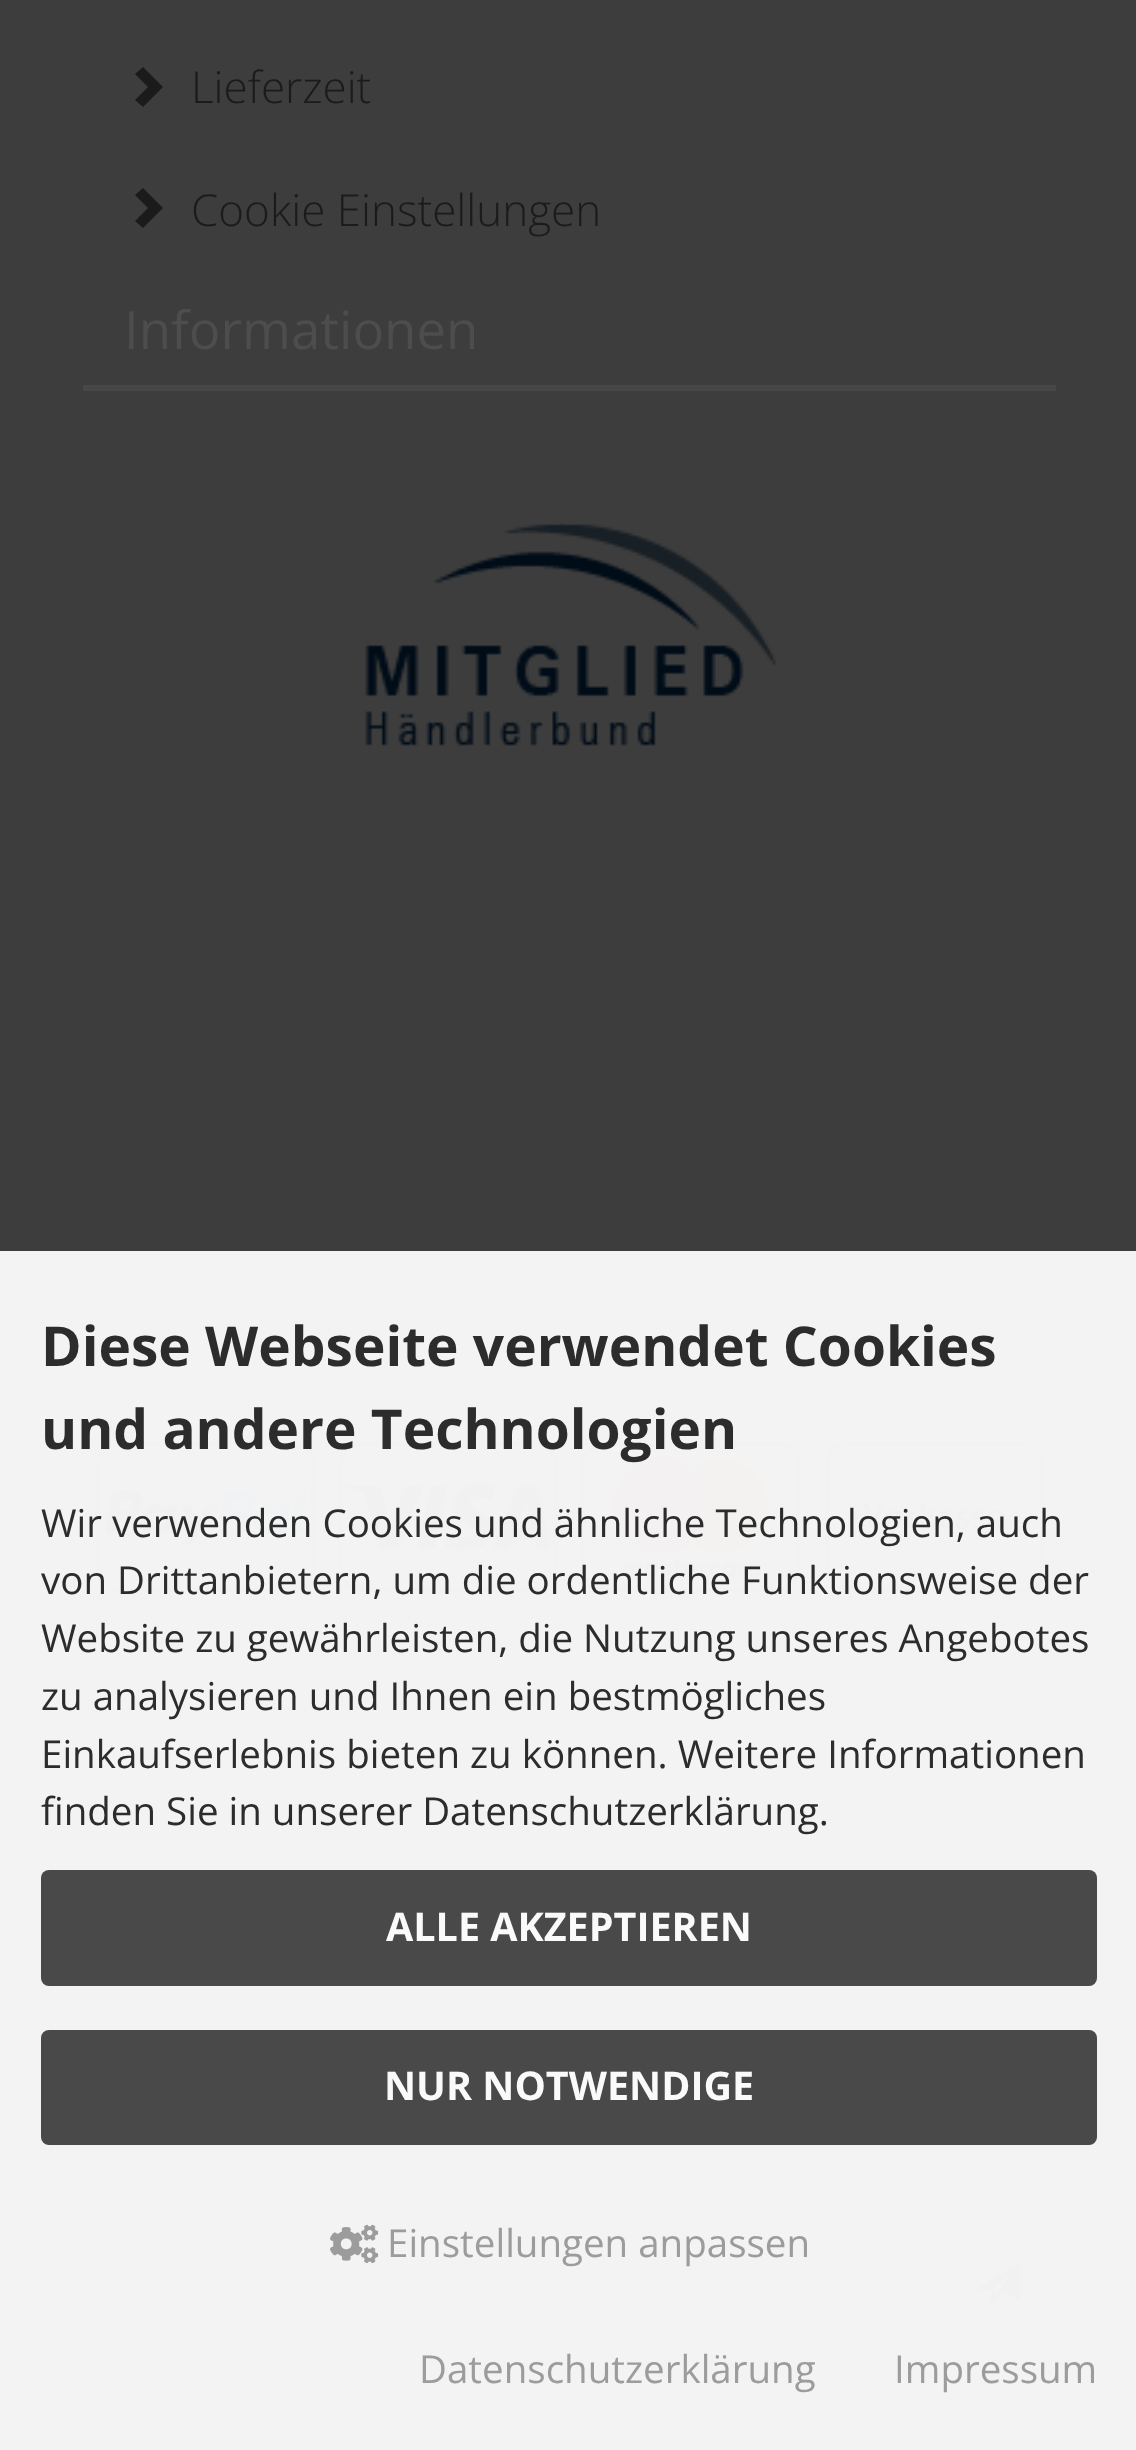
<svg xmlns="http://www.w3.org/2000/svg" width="1136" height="2450">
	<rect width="100%" height="100%" fill="#3D3D3D" />
	<path d="M163 87L143 107L135 100L148 87L135 74L143 67Z" fill="#1B1B1B" />
	<text x="191" y="103" font-family="Open Sans" font-size="44" font-weight="300" fill="#1B1B1B">Lieferzeit</text>
	<path d="M163 208L143 228L135 221L148 208L135 195L143 188Z" fill="#1B1B1B" />
	<text x="191" y="226" font-family="Open Sans" font-size="44" font-weight="300" fill="#1B1B1B">Cookie Einstellungen</text>
	<rect x="83" y="385" width="973" height="6" fill="#474747" />
	<text x="124" y="349" font-family="Open Sans" font-size="52.75" fill="#4D4D4D">Informationen</text>
	<image x="365" y="522" width="411" height="224" href="assets/img1.png" />
	<rect x="83" y="1381" width="973" height="6" fill="#474747" />
	<image x="95" y="1440" width="952" height="153" href="assets/img2.png" />
	<rect x="86" y="2231" width="854" height="106" fill="#4D4D4D" />
	<rect x="85" y="2228" width="856" height="3" fill="#474747" />
	<rect x="84.5" y="2226.5" width="857" height="112" fill="none" stroke="#3D3D3D" stroke-width="3" />
	<rect x="944" y="2239" width="109" height="87" fill="#454545" />
	<path d="M1020 2301L1003 2291L991 2305V2290H976L1020 2261ZM994 2289V2297L1019 2262Z" fill="#0A0A0A" />
	<rect x="0" y="1251" width="1136" height="1199" fill="#F9F9F9" fill-opacity="0.97" />
	<g font-family="Open Sans" font-size="55" font-weight="700" fill="#2C2C2C">
		<text x="41" y="1366">Diese Webseite verwendet Cookies</text>
		<text x="41" y="1449">und andere Technologien</text>
	</g>
	<g font-family="Open Sans" font-size="38.5" fill="#2C2C2C">
		<text x="41" y="1537">Wir verwenden Cookies und ähnliche Technologien, auch</text>
		<text x="41" y="1594">von Drittanbietern, um die ordentliche Funktionsweise der</text>
		<text x="41" y="1652">Website zu gewährleisten, die Nutzung unseres Angebotes</text>
		<text x="41" y="1710">zu analysieren und Ihnen ein bestmögliches</text>
		<text x="41" y="1768">Einkaufserlebnis bieten zu können. Weitere Informationen</text>
		<text x="41" y="1825">finden Sie in unserer Datenschutzerklärung.</text>
	</g>
	<rect x="41" y="1870" width="1056" height="116" rx="8" fill="#494949" />
	<text x="386" y="1941" font-family="Open Sans" font-size="39.5" font-weight="700" fill="#FAFAFA">ALLE AKZEPTIEREN</text>
	<rect x="41" y="2030" width="1056" height="115" rx="8" fill="#494949" />
	<text x="384" y="2100" font-family="Open Sans" font-size="39.5" font-weight="700" fill="#FAFAFA">NUR NOTWENDIGE</text>
	<image x="330" y="2224" width="49" height="40" href="assets/img3.png" />
	<g font-family="Open Sans" font-size="38.5" fill="#9C9C9C">
		<text x="387" y="2257">Einstellungen anpassen</text>
		<text x="419" y="2383">Datenschutzerklärung</text>
		<text x="894" y="2383">Impressum</text>
	</g>
</svg>
